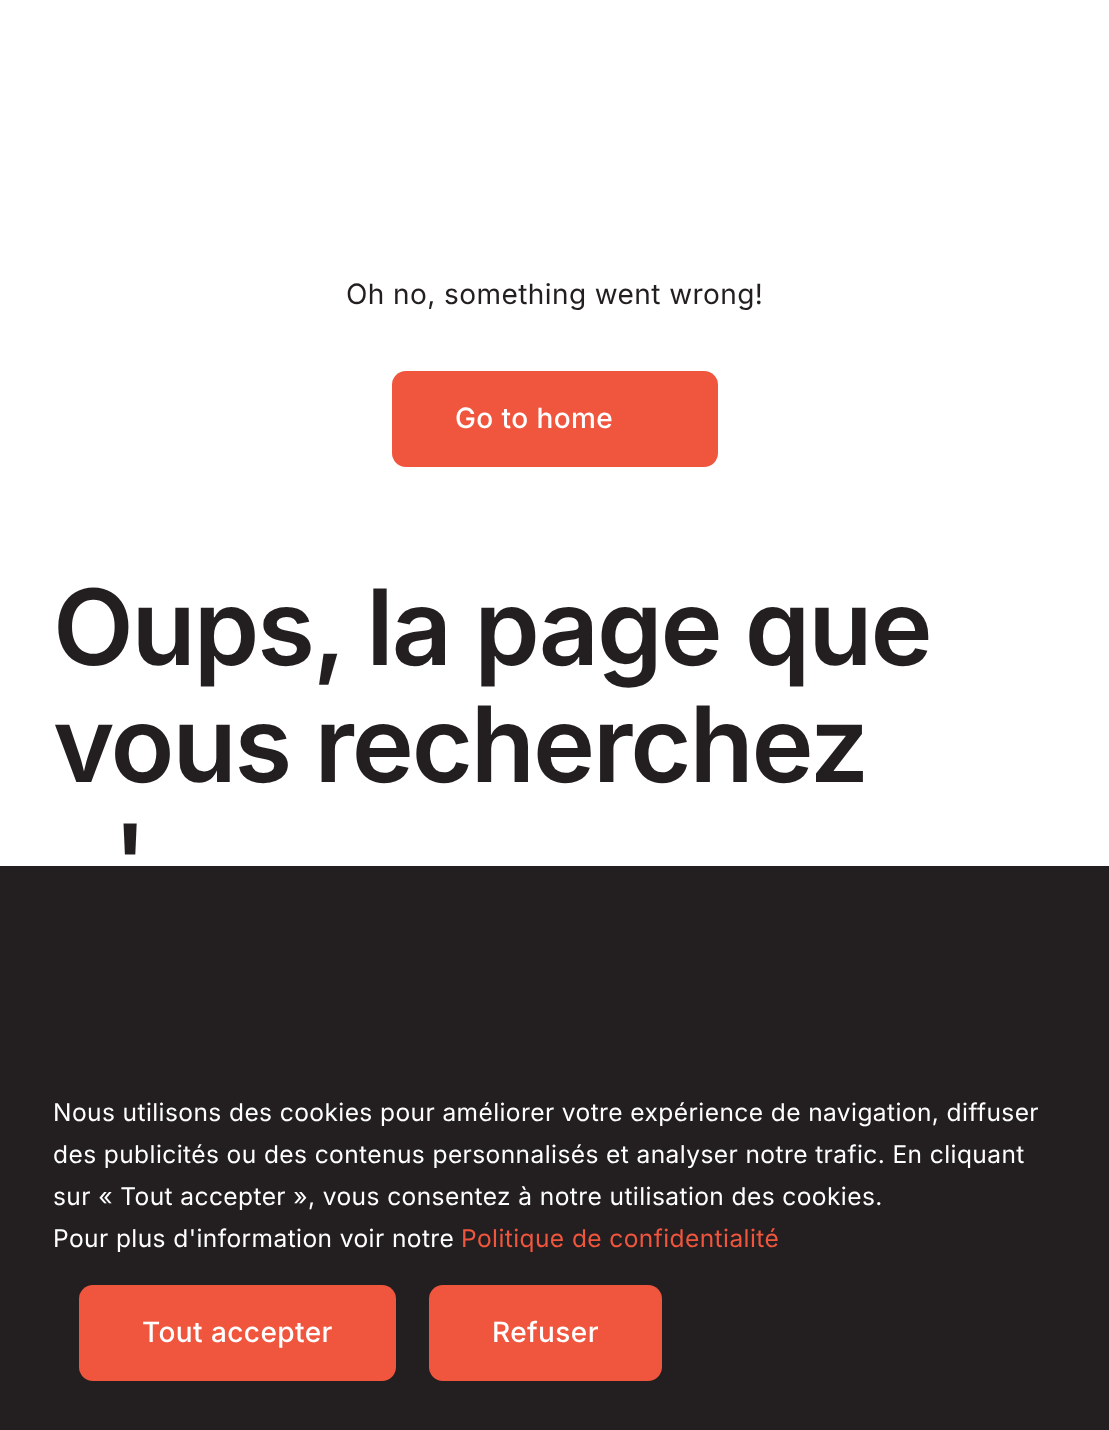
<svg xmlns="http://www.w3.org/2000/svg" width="1109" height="1430">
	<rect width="100%" height="100%" fill="#FFFFFF" />
	<text x="346" y="304" font-family="Inter" font-size="28" letter-spacing="0.42" fill="#231F20">Oh no, something went wrong!</text>
	<rect x="392" y="371" width="326" height="96" rx="14" fill="#F0553D" />
	<text x="455" y="428" font-family="Inter" font-size="28" font-weight="500" letter-spacing="0.42" fill="#FFFFFF">Go to home</text>
	<g font-family="Inter" font-size="105" font-weight="600" letter-spacing="-2.1" fill="#231F20">
		<text x="53" y="665">Oups, la page que</text>
		<text x="53" y="782">vous recherchez</text>
		<text x="113" y="900">'</text>
	</g>
	<rect x="0" y="866" width="1109" height="564" fill="#231F20" />
	<g font-family="Inter" font-size="24.5" letter-spacing="0.42" fill="#FFFFFF">
		<text x="53" y="1121">Nous utilisons des cookies pour améliorer votre expérience de navigation, diffuser</text>
		<text x="53" y="1163">des publicités ou des contenus personnalisés et analyser notre trafic. En cliquant</text>
		<text x="53" y="1205">sur « Tout accepter », vous consentez à notre utilisation des cookies.</text>
		<text x="53" y="1247">Pour plus d'information voir notre</text>
	</g>
	<text x="461" y="1247" font-family="Inter" font-size="24.5" letter-spacing="0.42" fill="#F0553D">Politique de confidentialité</text>
	<rect x="79" y="1285" width="317" height="96" rx="14" fill="#F0553D" />
	<text x="142" y="1342" font-family="Inter" font-size="28" font-weight="500" letter-spacing="0.42" fill="#FFFFFF">Tout accepter</text>
	<rect x="429" y="1285" width="233" height="96" rx="14" fill="#F0553D" />
	<text x="492" y="1342" font-family="Inter" font-size="28" font-weight="500" letter-spacing="0.42" fill="#FFFFFF">Refuser</text>
</svg>
